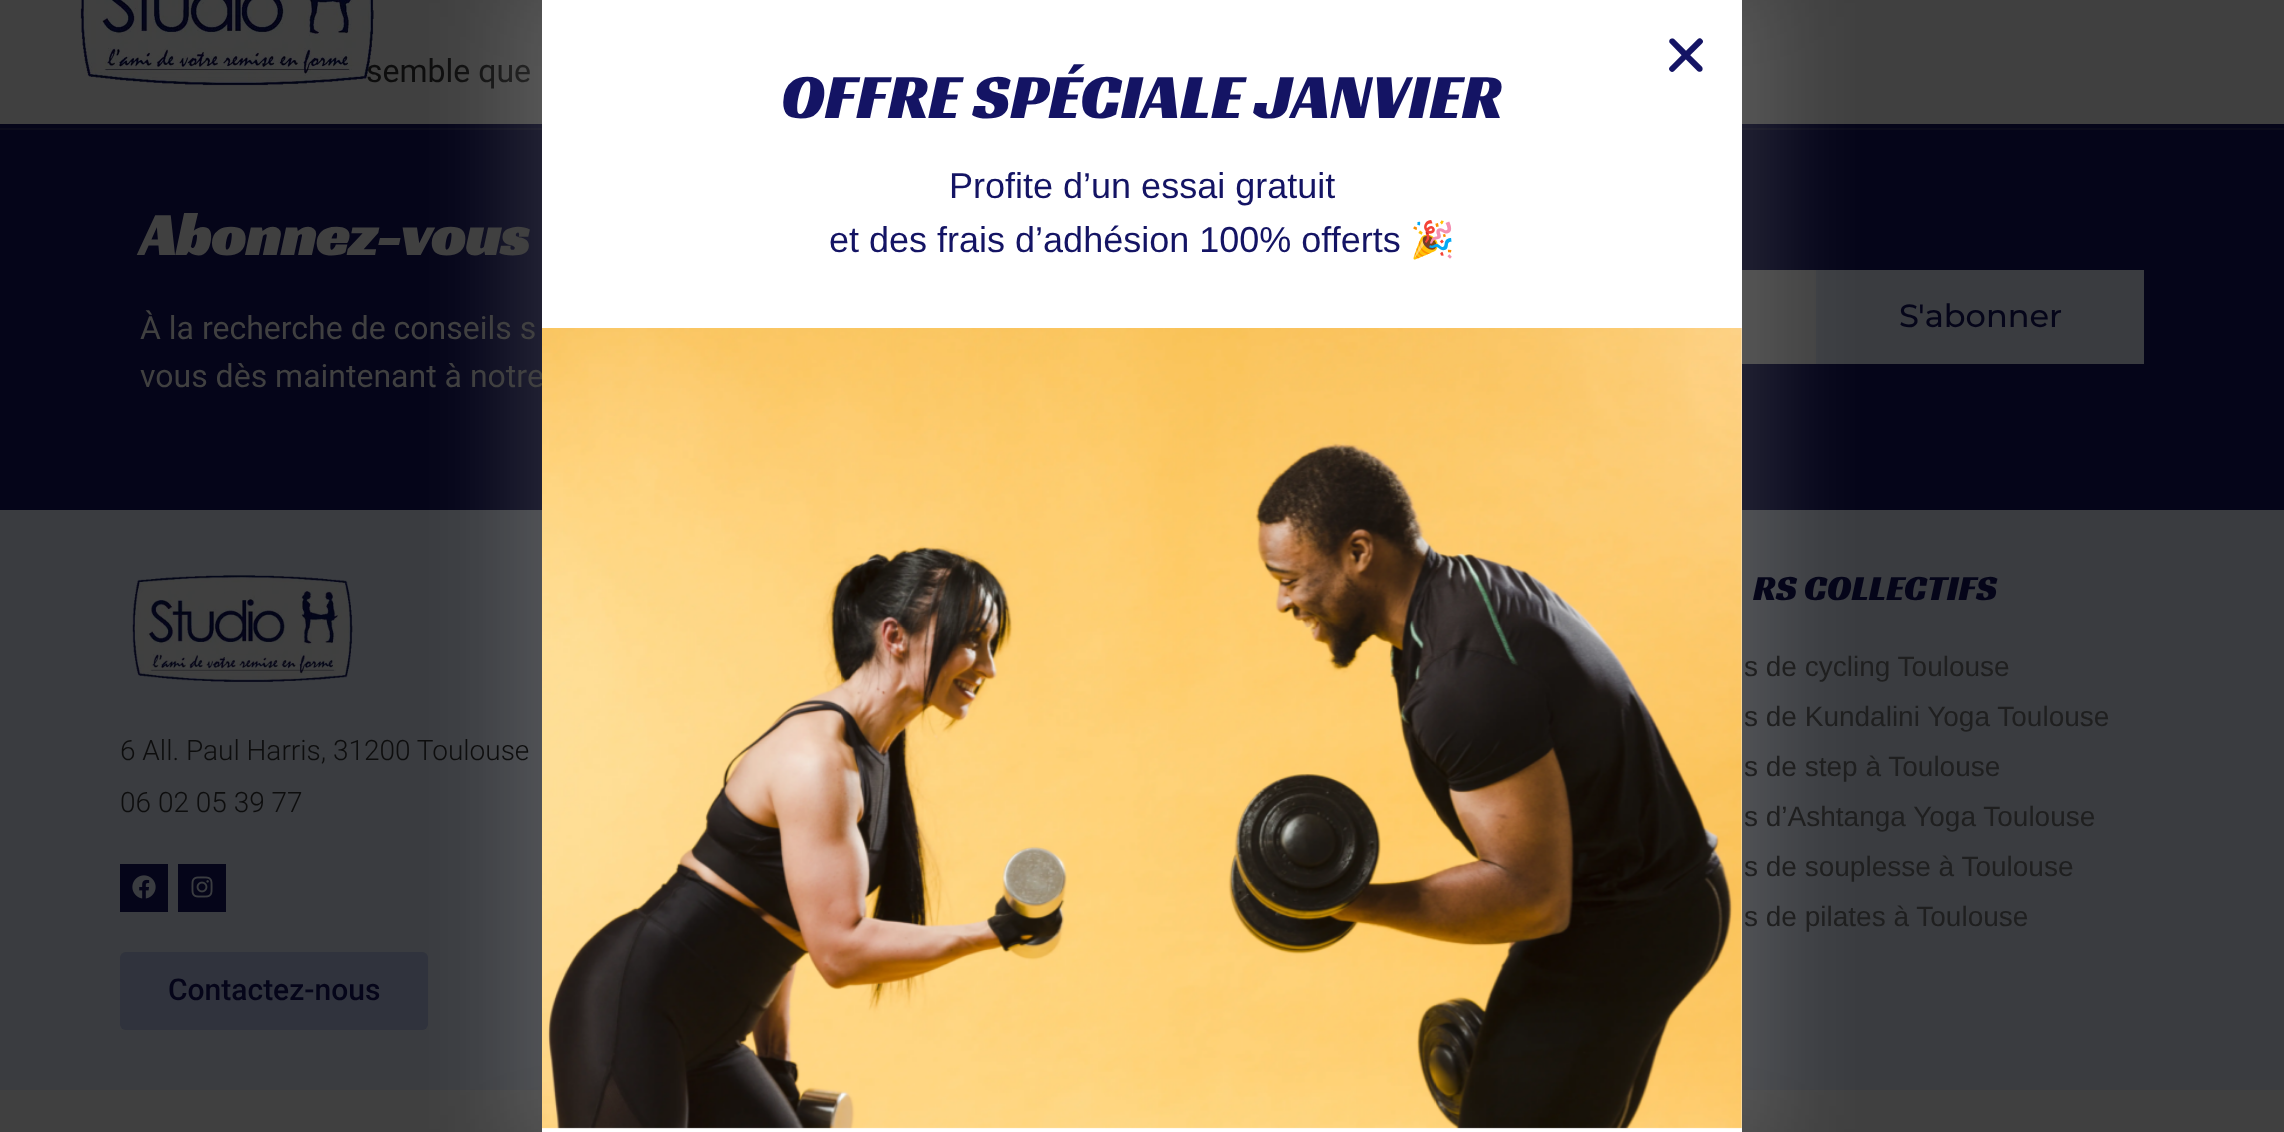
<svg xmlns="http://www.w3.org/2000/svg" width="2284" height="1132">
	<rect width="100%" height="100%" fill="#404040" />
	<rect x="0" y="124" width="2284" height="386" fill="#050519" />
	<rect x="0" y="128" width="2284" height="2" fill="#0B0B1B" />
	<text x="366" y="82" font-family="Roboto" font-size="32" fill="#0D0D0D">semble que</text>
	<image x="80" y="0" width="294" height="86" href="assets/img1.png" />
	<rect x="1742" y="270" width="74" height="94" fill="#404040" />
	<rect x="1816" y="270" width="328" height="94" fill="#3A3C40" />
	<rect x="0" y="510" width="2284" height="580" fill="#3A3C40" />
	<rect x="120" y="952" width="308" height="78" rx="6" fill="#30333D" />
	<rect x="512" y="-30" width="1260" height="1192" fill="#FFFFFF" fill-opacity="0.15" filter="blur(50px)" />
	<text x="140" y="387" font-family="Roboto" font-size="32" fill="#404040">vous dès maintenant à notre</text>
	<rect x="542" y="0" width="1200" height="1132" fill="#FFFFFF" />
	<image x="1669" y="38" width="34" height="34" href="assets/img2.png" />
	<text x="781" y="118" font-family="Racing Sans One" font-size="64" fill="#141464">OFFRE SPÉCIALE JANVIER</text>
	<g font-family="Liberation Sans" font-size="36" fill="#141464">
		<text x="949" y="198">Profite d’un essai gratuit</text>
		<text x="829" y="252">et des frais d’adhésion 100% offerts</text>
	</g>
	<text x="1410" y="252" font-family="Noto Color Emoji" font-size="36" fill="#141464">🎉</text>
	<image x="542" y="328" width="1200" height="801" href="assets/img3.png" />
	<text x="140" y="255" font-family="Racing Sans One" font-size="60" font-weight="700" fill="#404040">Abonnez-vous</text>
	<text x="140" y="339" font-family="Roboto" font-size="32" fill="#404040">À la recherche de conseils s</text>
	<text x="1899" y="327" font-family="Montserrat" font-size="32" font-weight="500" fill="#050519">S'abonner</text>
	<image x="132" y="575" width="221" height="107" href="assets/img4.png" />
	<g font-family="Roboto" font-size="28" font-weight="300" fill="#0D0D0D">
		<text x="120" y="760">6 All. Paul Harris, 31200 Toulouse</text>
		<text x="120" y="812">06 02 05 39 77</text>
	</g>
	<rect x="120" y="864" width="48" height="48" fill="#050519" />
	<image x="132" y="875" width="24" height="24" href="assets/img5.png" />
	<rect x="178" y="864" width="48" height="48" fill="#050519" />
	<image x="191" y="876" width="22" height="22" href="assets/img6.png" />
	<text x="168" y="1000" font-family="Roboto" font-size="30" font-weight="500" fill="#050519">Contactez-nous</text>
	<text x="1753" y="600" font-family="Racing Sans One" font-size="36" fill="#050519">RS COLLECTIFS</text>
	<g font-family="Liberation Sans" font-size="28" fill="#1F1F1F">
		<text x="1744" y="676">s de cycling Toulouse</text>
		<text x="1744" y="726">s de Kundalini Yoga Toulouse</text>
		<text x="1744" y="776">s de step à Toulouse</text>
		<text x="1744" y="826">s d’Ashtanga Yoga Toulouse</text>
		<text x="1744" y="876">s de souplesse à Toulouse</text>
		<text x="1744" y="926">s de pilates à Toulouse</text>
	</g>
</svg>
